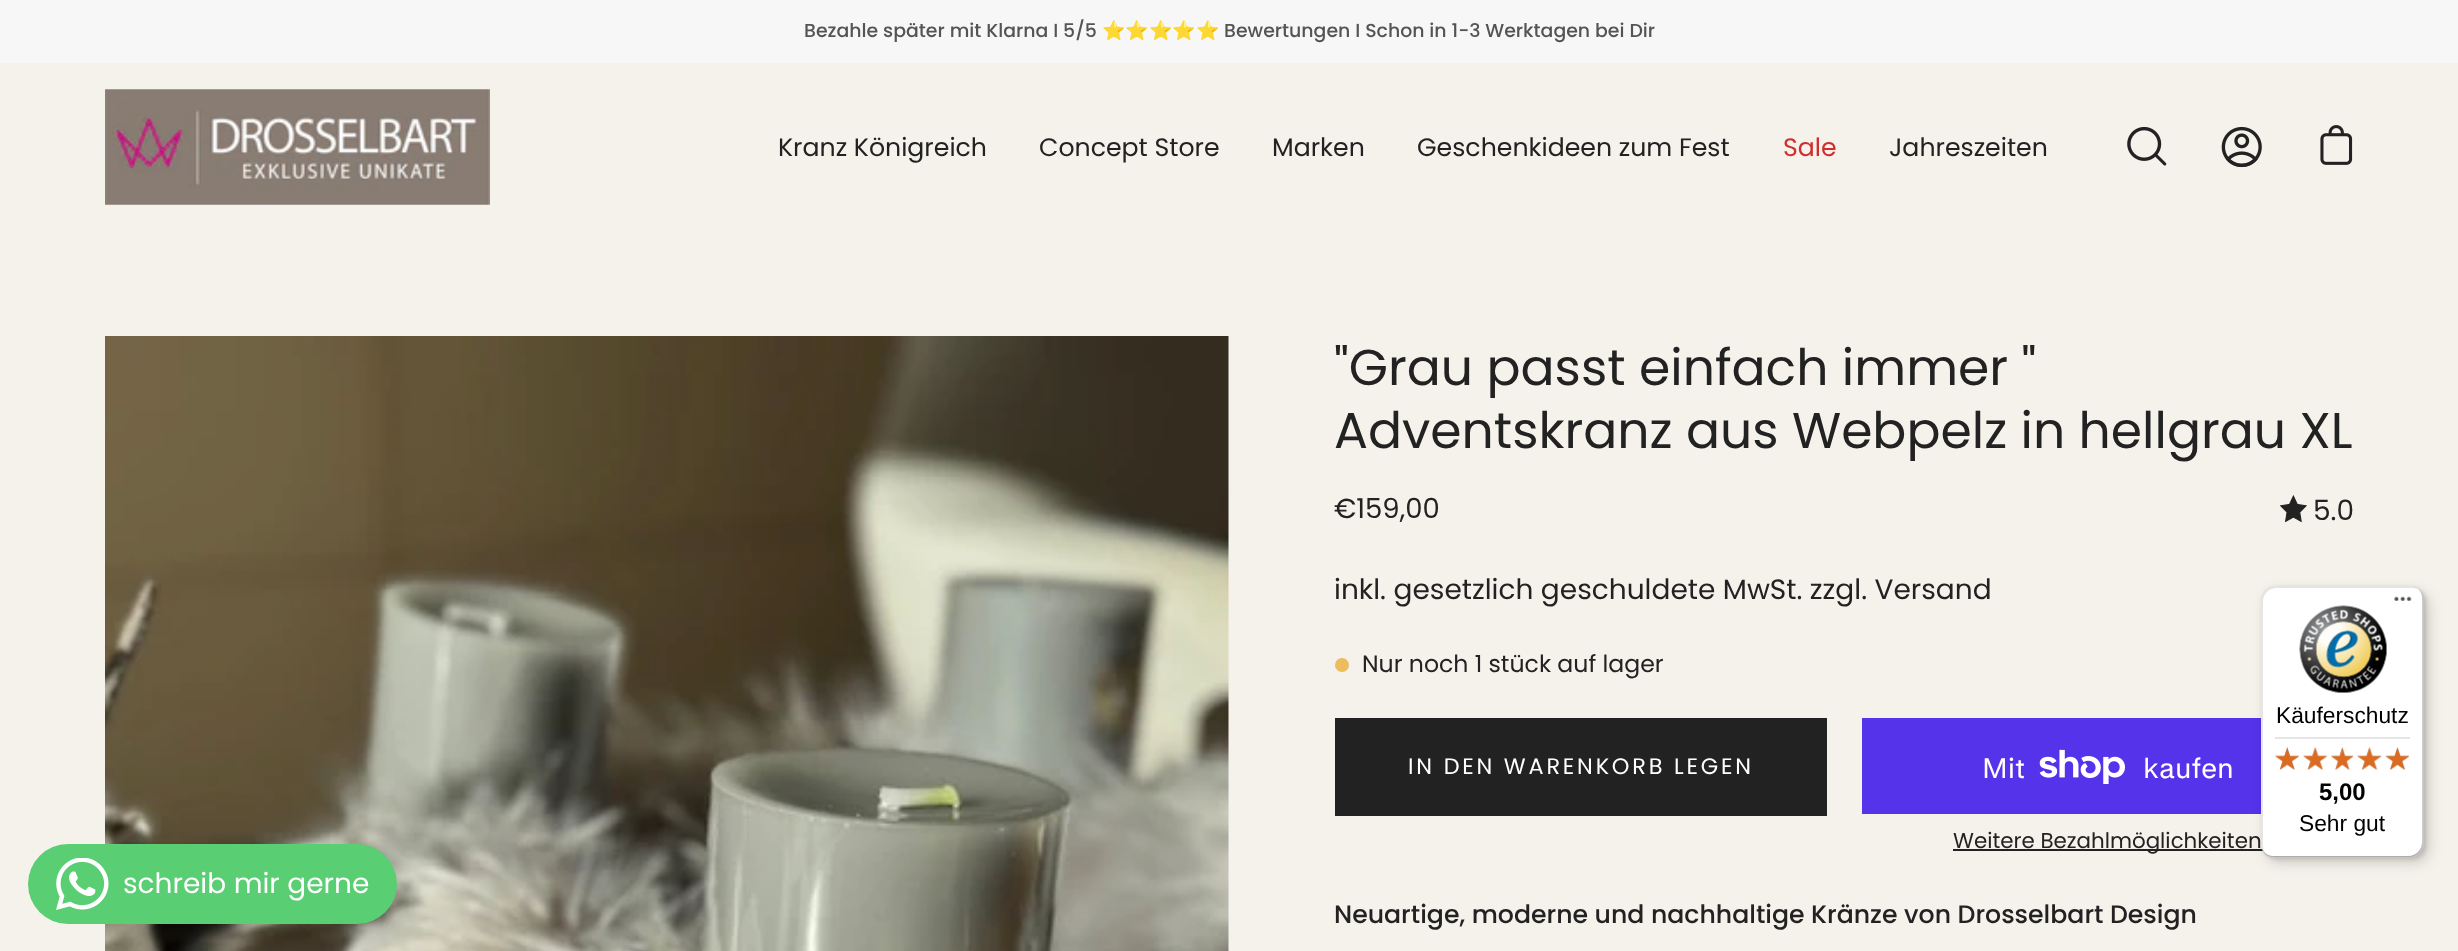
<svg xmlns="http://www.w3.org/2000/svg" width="2458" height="951">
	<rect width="100%" height="100%" fill="#F5F1EB" />
	<rect x="0" y="0" width="2458" height="63" fill="#F7F7F7" />
	<text x="804" y="37" font-family="Poppins" font-size="18.9" font-weight="500" fill="#545454">Bezahle später mit Klarna I 5/5</text>
	<text x="1102" y="37" font-family="Noto Color Emoji" font-size="18.9" fill="#545454">⭐️⭐️⭐️⭐️⭐️</text>
	<text x="1224" y="37" font-family="Poppins" font-size="18.9" font-weight="500" fill="#545454">Bewertungen I Schon in 1-3 Werktagen bei Dir</text>
	<image x="105" y="89" width="385" height="116" href="assets/img1.png" />
	<g font-family="Poppins" font-size="25.2" fill="#222222">
		<text x="778" y="156">Kranz Königreich</text>
		<text x="1039" y="156">Concept Store</text>
		<text x="1272" y="156">Marken</text>
		<text x="1417" y="156">Geschenkideen zum Fest</text>
	</g>
	<text x="1783" y="156" font-family="Poppins" font-size="25.2" fill="#D02E2E">Sale</text>
	<text x="1889" y="156" font-family="Poppins" font-size="25.2" fill="#222222">Jahreszeiten</text>
	<image x="2127" y="126" width="40" height="40" href="assets/img2.png" />
	<image x="2221" y="126" width="41" height="42" href="assets/img3.png" />
	<image x="2320" y="125" width="33" height="40" href="assets/img4.png" />
	<image x="105" y="336" width="1124" height="615" href="assets/img5.png" />
	<g font-family="Poppins" font-size="50.4" fill="#222222">
		<text x="1334" y="385">"Grau passt einfach immer "</text>
		<text x="1334" y="448">Adventskranz aus Webpelz in hellgrau XL</text>
	</g>
	<text x="1334" y="518" font-family="Poppins" font-size="27.5" fill="#222222">€159,00</text>
	<image x="2280" y="495" width="27" height="27" href="assets/img6.png" />
	<g font-family="Poppins" font-size="28" fill="#222222">
		<text x="2313" y="520">5.0</text>
		<text x="1334" y="599">inkl. gesetzlich geschuldete MwSt. zzgl. Versand</text>
	</g>
	<circle cx="1342" cy="665" r="7" fill="#ECBD5E" />
	<text x="1362" y="672" font-family="Poppins" font-size="23.6" fill="#222222">Nur noch 1 stück auf lager</text>
	<rect x="1335" y="718" width="492" height="98" fill="#222222" />
	<text x="1408" y="774" font-family="Poppins" font-size="22.4" letter-spacing="2.8" fill="#FFFFFF">IN DEN WARENKORB LEGEN</text>
	<rect x="1862" y="718" width="399" height="96" fill="#5433EB" />
	<text x="1982" y="778" font-family="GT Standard" font-size="28" fill="#FFFFFF">Mit</text>
	<image x="2039" y="749" width="86" height="35" href="assets/img7.png" />
	<text x="2143" y="778" font-family="GT Standard" font-size="28" fill="#FFFFFF">kaufen</text>
	<rect x="1953" y="849" width="310" height="2" fill="#222222" />
	<text x="1953" y="848" font-family="Poppins" font-size="21.4" fill="#222222">Weitere Bezahlmöglichkeiten</text>
	<text x="1334" y="923" font-family="Poppins" font-size="25.2" font-weight="500" fill="#222222">Neuartige, moderne und nachhaltige Kränze von Drosselbart Design</text>
	<rect x="2266" y="592" width="163" height="271" rx="14" fill="#000000" fill-opacity="0.15" filter="blur(7px)" />
	<rect x="2263" y="588" width="163" height="271" rx="14" fill="#000000" fill-opacity="0.15" filter="blur(2px)" />
	<rect x="2261" y="586" width="163" height="272" rx="14" fill="#FFFFFF" />
	<path d="M2277 588H2412C2415 588 2419 589 2421 592C2419 588 2415 586 2410 586H2275C2267 586 2261 592 2261 600V844C2261 850 2264 854 2269 857C2265 854 2263 850 2263 845V602C2263 594 2269 588 2277 588Z" fill="#000000" fill-opacity="0.1" />
	<path d="M2263 851C2265 855 2270 858 2275 858H2410C2418 858 2424 852 2424 844V600C2424 595 2422 591 2418 589C2421 591 2422 595 2422 598V842C2422 849 2416 856 2408 856H2273C2269 856 2266 854 2263 851Z" fill="#000000" fill-opacity="0.2" />
	<path d="M2262 850C2265 855 2269 858 2275 858H2410C2418 858 2424 852 2424 844V600C2424 595 2422 591 2418 589C2421 591 2423 595 2423 599V842C2423 850 2416 856 2409 856H2274C2269 856 2265 854 2262 850Z" fill="#323232" fill-opacity="0.2" />
	<path d="M2264 852C2266 856 2270 858 2275 858H2410C2418 858 2424 852 2424 844V600C2424 595 2422 591 2419 589C2421 592 2423 595 2423 599V843C2423 850 2417 857 2409 857H2274C2270 857 2266 855 2264 852Z" fill="#FFFFFF" fill-opacity="0.3" />
	<image x="2394" y="596" width="18" height="5" href="assets/img8.png" />
	<image x="2299" y="605" width="88" height="88" href="assets/img9.png" />
	<text x="2276" y="723" font-family="Liberation Sans" font-size="22.75" fill="#000000">Käuferschutz</text>
	<rect x="2275" y="737" width="135" height="2" fill="#E5E5E5" />
	<image x="2275" y="747" width="24" height="23" href="assets/img10.png" />
	<image x="2303" y="747" width="24" height="23" href="assets/img11.png" />
	<image x="2331" y="747" width="22" height="23" href="assets/img12.png" />
	<image x="2357" y="747" width="25" height="23" href="assets/img13.png" />
	<image x="2386" y="747" width="23" height="23" href="assets/img14.png" />
	<image x="2275" y="747" width="24" height="23" href="assets/img15.png" />
	<image x="2303" y="747" width="25" height="23" href="assets/img16.png" />
	<image x="2331" y="747" width="23" height="23" href="assets/img17.png" />
	<image x="2357" y="747" width="25" height="23" href="assets/img18.png" />
	<image x="2385" y="747" width="25" height="23" href="assets/img19.png" />
	<text x="2319" y="800" font-family="Liberation Sans" font-size="24" font-weight="700" fill="#000000">5,00</text>
	<text x="2299" y="831" font-family="Liberation Sans" font-size="22.75" fill="#000000">Sehr gut</text>
	<rect x="28" y="844" width="369" height="80" rx="40" fill="#59CE72" />
	<image x="56" y="858" width="53" height="52" href="assets/img20.png" />
	<text x="123" y="893" font-family="Poppins" font-size="28" fill="#FFFFFF">schreib mir gerne</text>
</svg>
